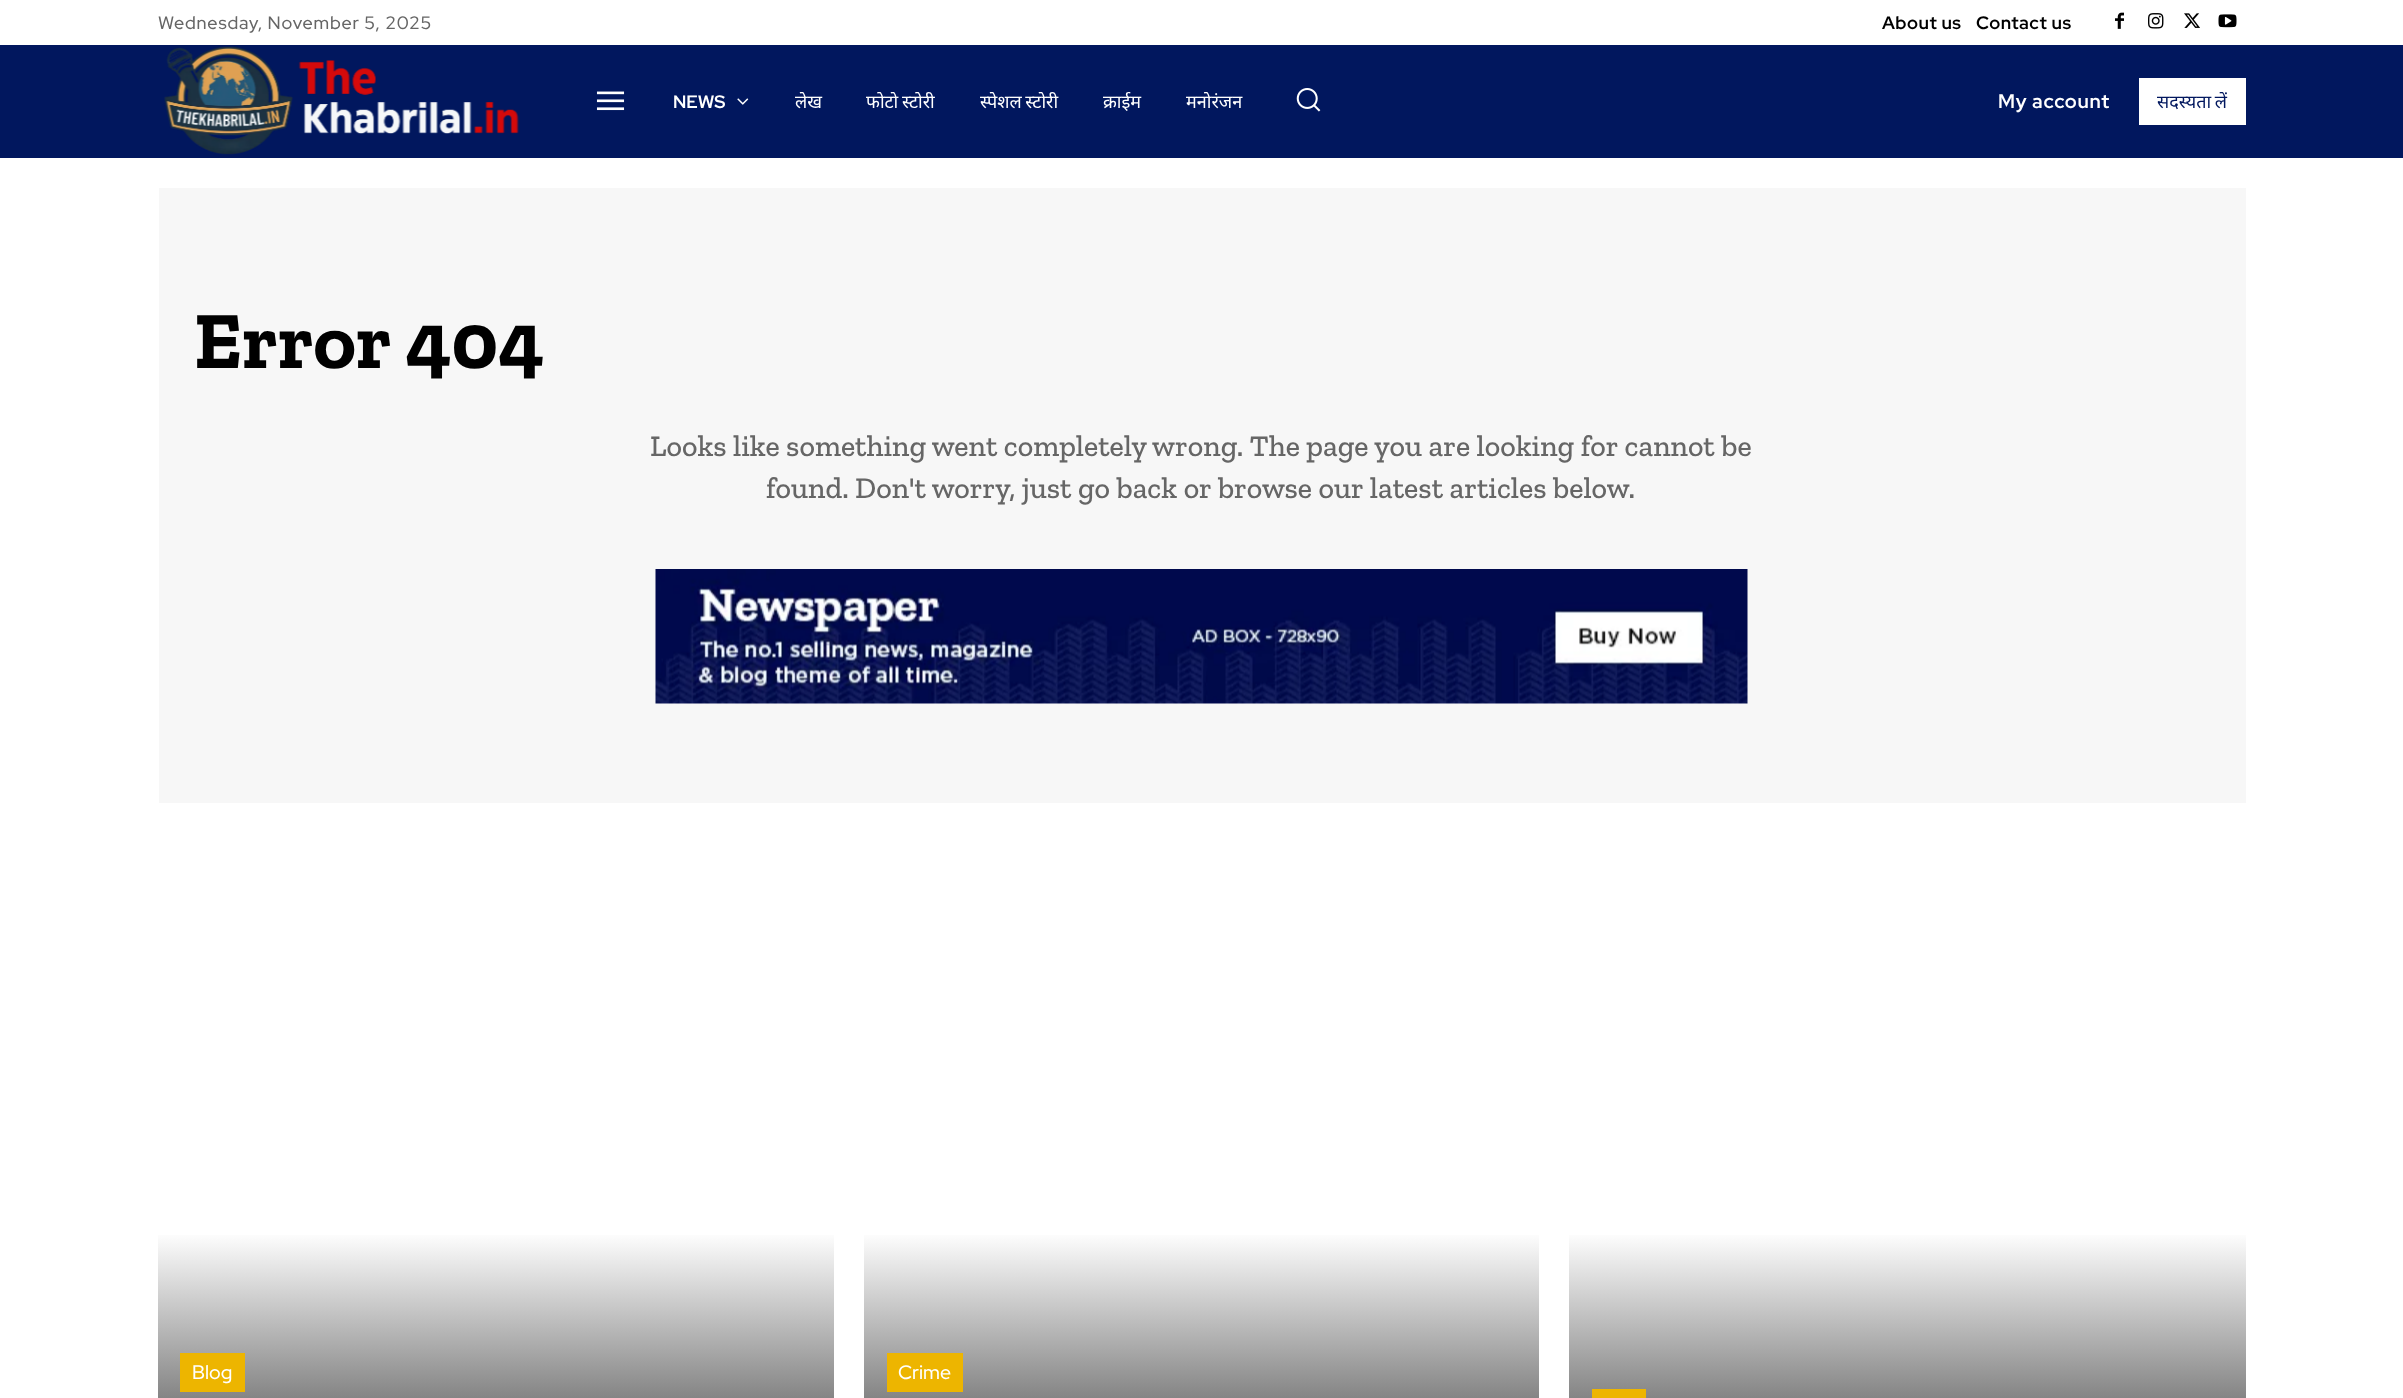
<svg xmlns="http://www.w3.org/2000/svg" width="2403" height="1398">
	<defs>
		<linearGradient id="g1" gradientUnits="userSpaceOnUse" x1="496" y1="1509" x2="496" y2="833"><stop offset="0" stop-color="#333333" /><stop offset="0.41" stop-color="#FFFFFF" /><stop offset="1" stop-color="#FFFFFF" /></linearGradient>
		<linearGradient id="g2" gradientUnits="userSpaceOnUse" x1="1202" y1="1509" x2="1202" y2="833"><stop offset="0" stop-color="#333333" /><stop offset="0.41" stop-color="#FFFFFF" /><stop offset="1" stop-color="#FFFFFF" /></linearGradient>
		<linearGradient id="g3" gradientUnits="userSpaceOnUse" x1="1907" y1="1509" x2="1907" y2="833"><stop offset="0" stop-color="#333333" /><stop offset="0.41" stop-color="#FFFFFF" /><stop offset="1" stop-color="#FFFFFF" /></linearGradient>
	</defs>
	<rect width="100%" height="100%" fill="#FFFFFF" />
	<text x="158" y="29" font-family="Red Hat Display" font-size="18" font-weight="500" letter-spacing="0.75" fill="#666666">Wednesday, November 5, 2025</text>
	<g font-family="Red Hat Display" font-size="18" font-weight="700" letter-spacing="0.5" fill="#000000">
		<text x="1882" y="29">About us</text>
		<text x="1976" y="29">Contact us</text>
	</g>
	<image x="2115" y="12" width="9" height="17" href="assets/img1.png" />
	<image x="2148" y="13" width="16" height="16" href="assets/img2.png" />
	<image x="2184" y="13" width="16" height="15" href="assets/img3.png" />
	<image x="2218" y="14" width="19" height="14" href="assets/img4.png" />
	<rect x="0" y="45" width="2403" height="113" fill="#01175E" />
	<image x="164" y="46" width="355" height="109" href="assets/img5.png" />
	<image x="596" y="91" width="29" height="20" href="assets/img6.png" />
	<text x="673" y="108" font-family="Red Hat Display" font-size="18" font-weight="700" fill="#FFFFFF">NEWS</text>
	<image x="737" y="98" width="12" height="7" href="assets/img7.png" />
	<g font-family="Noto Sans" font-size="18" fill="#FFFFFF">
		<text x="795" y="108">लेख</text>
		<text x="866" y="108" word-spacing="-1">फोटो स्टोरी</text>
		<text x="980" y="108" word-spacing="-1">स्पेशल स्टोरी</text>
		<text x="1103" y="108">क्राईम</text>
		<text x="1186" y="108">मनोरंजन</text>
	</g>
	<image x="1296" y="88" width="25" height="24" href="assets/img8.png" />
	<text x="1998" y="108" font-family="Red Hat Display" font-size="19.5" font-weight="700" letter-spacing="0.75" fill="#FFFFFF">My account</text>
	<rect x="2139" y="78" width="107" height="47" fill="#FFFFFF" />
	<text x="2157" y="108" word-spacing="-1" font-family="Noto Sans" font-size="18" fill="#01175E">सदस्यता लें</text>
	<rect x="159" y="188" width="2087" height="615" fill="#F7F7F7" />
	<text x="194" y="368" font-family="Zilla Slab" font-size="81" font-weight="700" fill="#000000">Error 404</text>
	<g font-family="Zilla Slab" font-size="30" font-weight="500" fill="#666666">
		<text x="650" y="456">Looks like something went completely wrong. The page you are looking for cannot be</text>
		<text x="766" y="498">found. Don't worry, just go back or browse our latest articles below.</text>
	</g>
	<image x="655" y="569" width="1093" height="135" href="assets/img9.png" />
	<rect x="158" y="1235" width="676" height="163" fill="url(#g1)" />
	<rect x="180" y="1353" width="65" height="39" fill="#EDB500" />
	<text x="192" y="1379" font-family="Red Hat Display" font-size="19.5" font-weight="500" fill="#FFFFFF">Blog</text>
	<rect x="864" y="1235" width="675" height="163" fill="url(#g2)" />
	<rect x="887" y="1353" width="76" height="39" fill="#EDB500" />
	<text x="898" y="1379" font-family="Red Hat Display" font-size="19.5" font-weight="500" fill="#FFFFFF">Crime</text>
	<rect x="1569" y="1235" width="677" height="163" fill="url(#g3)" />
	<rect x="1592" y="1389" width="54" height="9" fill="#EDB500" />
</svg>
